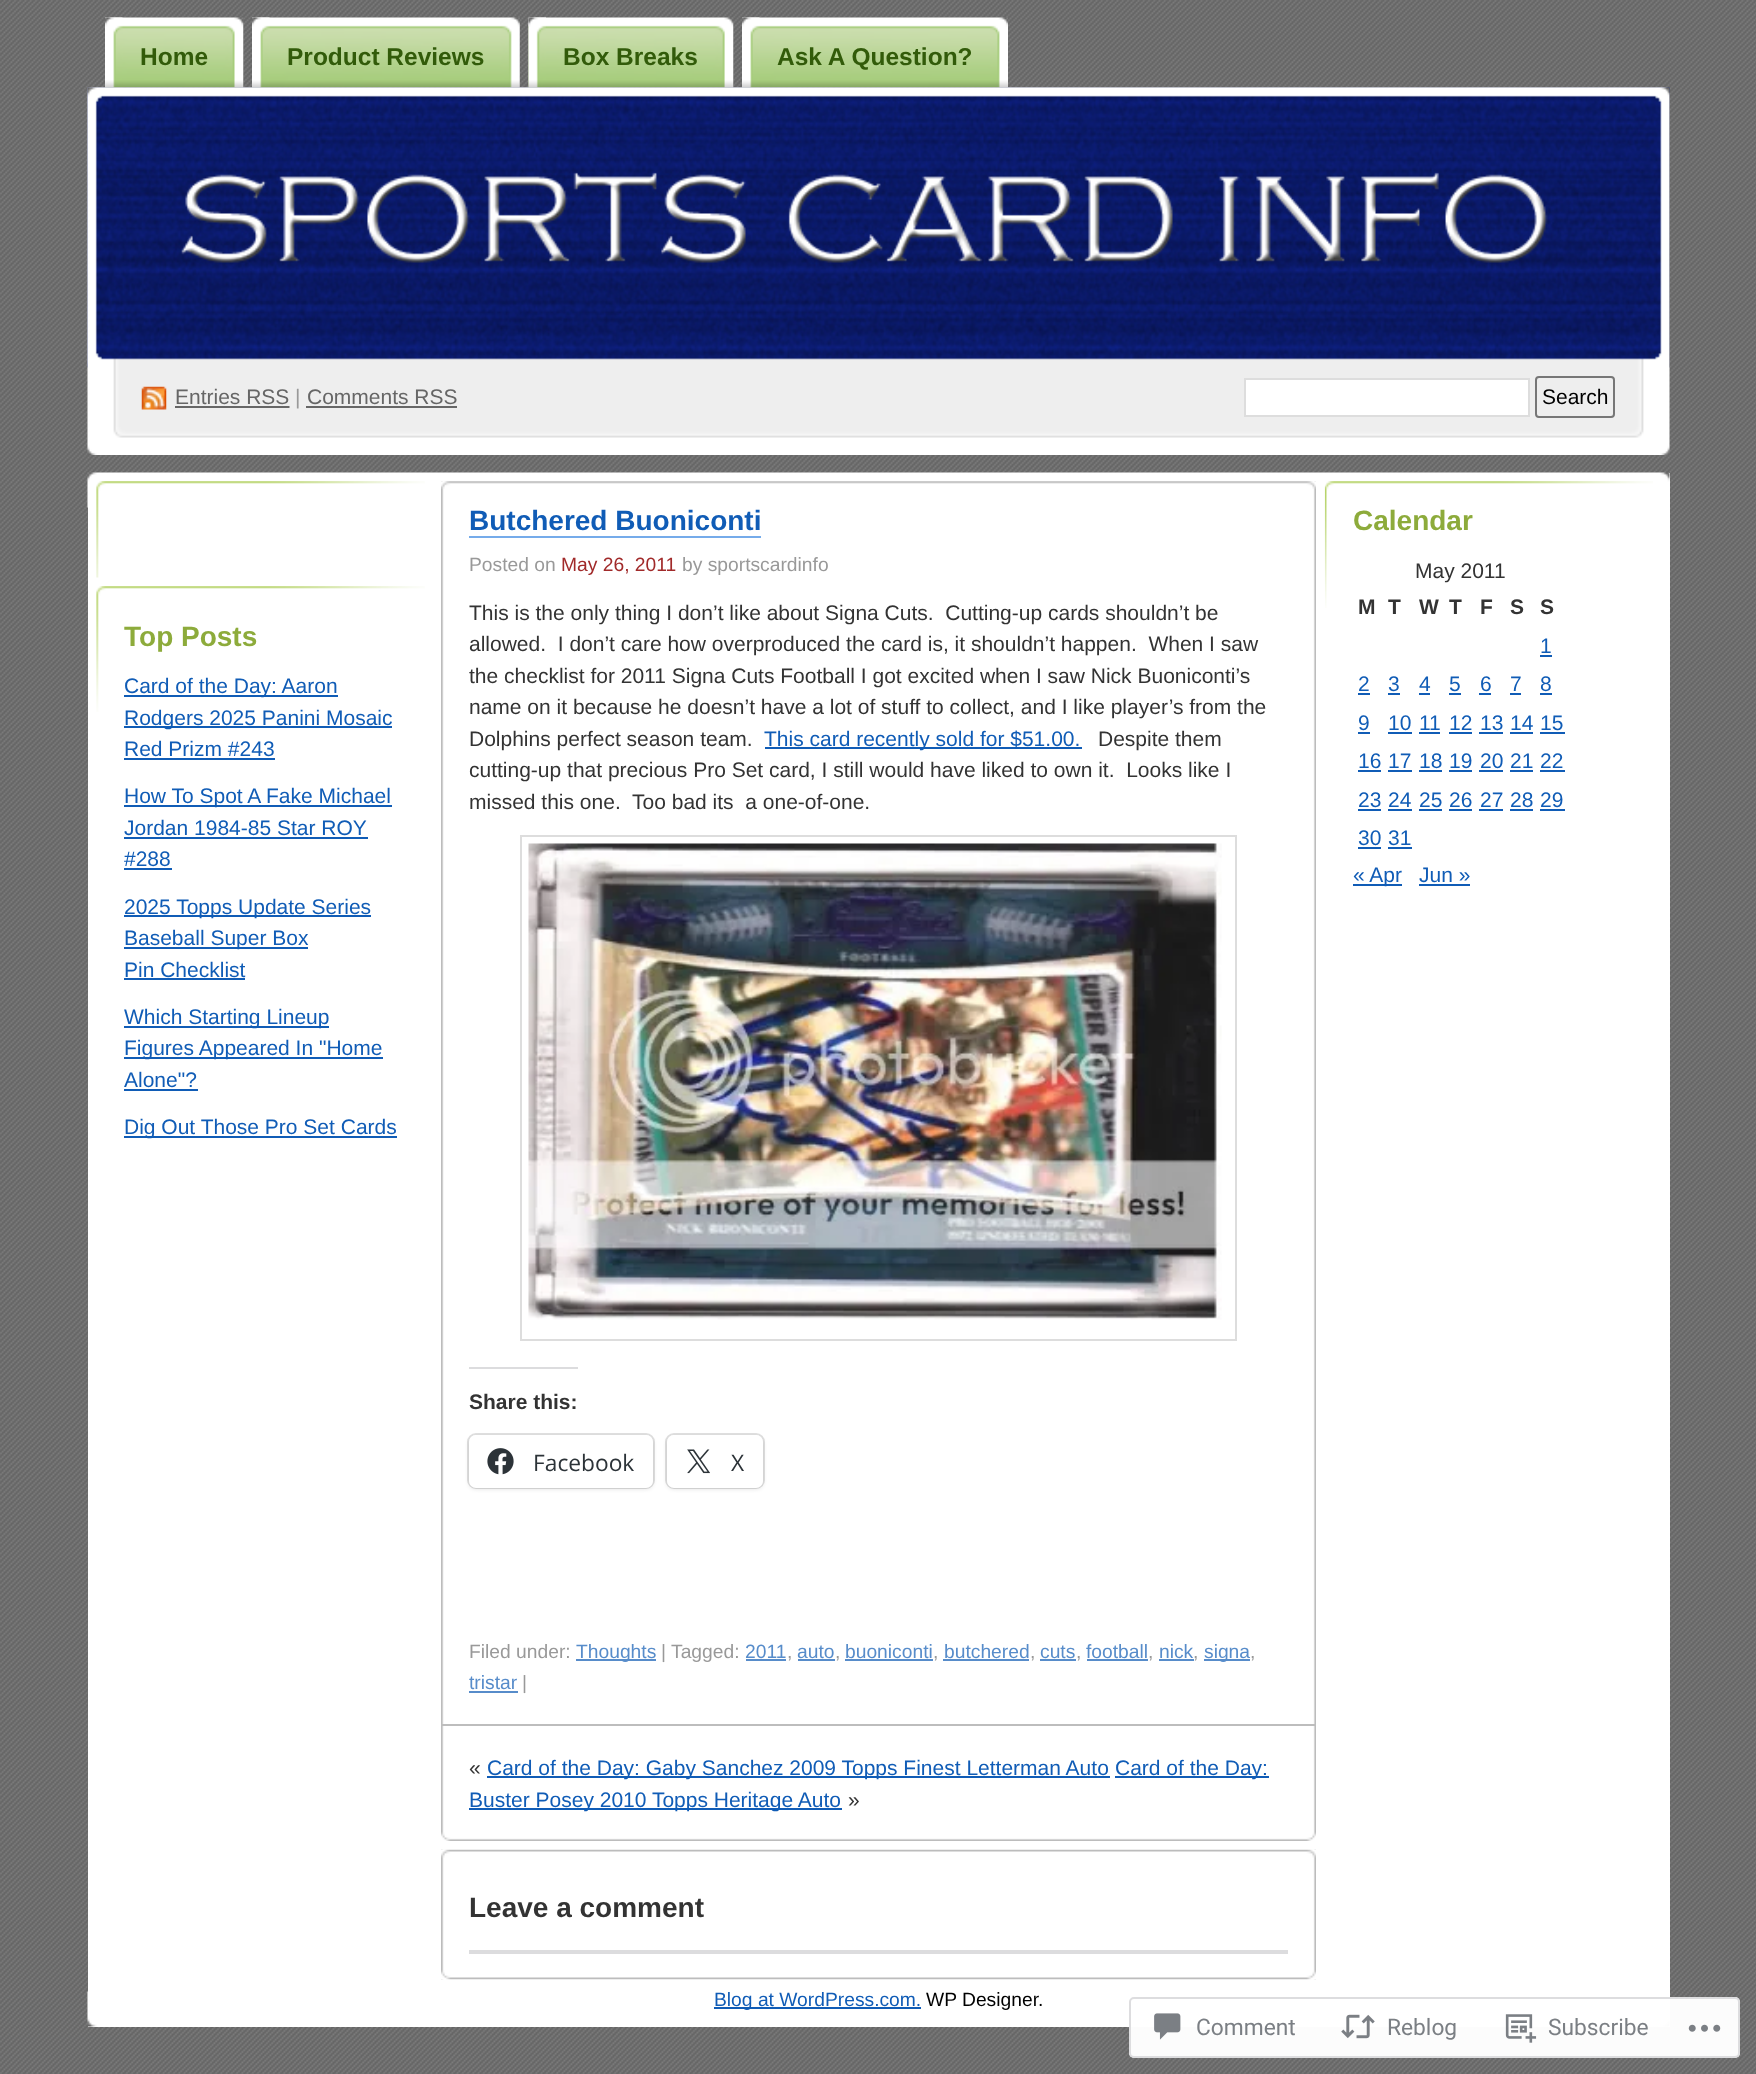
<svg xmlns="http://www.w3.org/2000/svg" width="1756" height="2074">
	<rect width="100%" height="100%" fill="#FFFFFF" />
	<image x="0" y="0" width="1756" height="2074" href="assets/img1.png" />
	<image x="105" y="17" width="139" height="71" href="assets/img2.png" />
	<image x="105" y="17" width="18" height="71" href="assets/img3.png" />
	<text x="140" y="65" font-family="Liberation Sans" font-size="24.5" font-weight="700" fill="#325B0A">Home</text>
	<image x="252" y="17" width="268" height="71" href="assets/img4.png" />
	<image x="252" y="17" width="18" height="71" href="assets/img5.png" />
	<text x="287" y="65" font-family="Liberation Sans" font-size="24.5" font-weight="700" fill="#325B0A">Product Reviews</text>
	<image x="528" y="17" width="206" height="71" href="assets/img6.png" />
	<image x="528" y="17" width="18" height="71" href="assets/img7.png" />
	<text x="563" y="65" font-family="Liberation Sans" font-size="24.5" font-weight="700" fill="#325B0A">Box Breaks</text>
	<image x="742" y="17" width="266" height="71" href="assets/img8.png" />
	<image x="742" y="17" width="18" height="71" href="assets/img9.png" />
	<text x="777" y="65" font-family="Liberation Sans" font-size="24.5" font-weight="700" fill="#325B0A">Ask A Question?</text>
	<image x="87" y="87" width="1583" height="281" href="assets/img10.png" />
	<image x="87" y="87" width="1583" height="368" href="assets/img11.png" />
	<image x="141" y="386" width="26" height="24" href="assets/img12.png" />
	<text x="175" y="404" font-family="Liberation Sans" font-size="21" fill="#666666">Entries RSS</text>
	<rect x="175" y="406" width="72" height="2" fill="#666666" />
	<path d="M246 407H289.5" fill="none" stroke="#666666" stroke-width="1.8" stroke-dasharray="1.75 1.75" />
	<rect x="247" y="406" width="42" height="2" fill="#666666" />
	<text x="295" y="404" font-family="Liberation Sans" font-size="21" fill="#999999">|</text>
	<text x="307" y="404" font-family="Liberation Sans" font-size="21" fill="#666666">Comments RSS</text>
	<rect x="306" y="406" width="151" height="2" fill="#666666" />
	<rect x="1245" y="379" width="284" height="37" fill="#FFFFFF" stroke="#DDDDDD" stroke-width="2" />
	<rect x="1536" y="377" width="78" height="40" rx="3" fill="none" stroke="#767676" stroke-width="2" />
	<text x="1542" y="404" font-family="Liberation Sans" font-size="21" fill="#000000">Search</text>
	<rect x="88" y="473" width="1582" height="1554" fill="#FFFFFF" />
	<image x="87" y="1991" width="1583" height="36" href="assets/img13.png" />
	<image x="87" y="472" width="1583" height="36" href="assets/img14.png" />
	<image x="96" y="481" width="329" height="97" href="assets/img15.png" />
	<image x="96" y="586" width="329" height="126" href="assets/img16.png" />
	<text x="124" y="646" font-family="Liberation Sans" font-size="28" font-weight="700" fill="#8DAB3B">Top Posts</text>
	<rect x="124" y="695" width="214" height="2" fill="#105CB6" />
	<text x="124" y="693" font-family="Liberation Sans" font-size="21" fill="#105CB6">Card of the Day: Aaron</text>
	<rect x="124" y="726" width="268" height="2" fill="#105CB6" />
	<g font-family="Liberation Sans" font-size="21" fill="#105CB6">
		<text x="124" y="725">Rodgers 2025 Panini Mosaic</text>
		<text x="124" y="756">Red Prizm #243</text>
	</g>
	<rect x="124" y="758" width="151" height="2" fill="#105CB6" />
	<rect x="124" y="805" width="268" height="2" fill="#105CB6" />
	<g font-family="Liberation Sans" font-size="21" fill="#105CB6">
		<text x="124" y="803">How To Spot A Fake Michael</text>
		<text x="124" y="835">Jordan 1984-85 Star ROY</text>
	</g>
	<rect x="124" y="837" width="244" height="2" fill="#105CB6" />
	<text x="124" y="866" font-family="Liberation Sans" font-size="21" fill="#105CB6">#288</text>
	<rect x="124" y="868" width="48" height="2" fill="#105CB6" />
	<rect x="124" y="915" width="247" height="2" fill="#105CB6" />
	<text x="124" y="914" font-family="Liberation Sans" font-size="21" fill="#105CB6">2025 Topps Update Series</text>
	<rect x="124" y="947" width="184" height="2" fill="#105CB6" />
	<g font-family="Liberation Sans" font-size="21" fill="#105CB6">
		<text x="124" y="945">Baseball Super Box</text>
		<text x="124" y="977">Pin Checklist</text>
	</g>
	<rect x="124" y="978" width="121" height="2" fill="#105CB6" />
	<rect x="124" y="1026" width="205" height="2" fill="#105CB6" />
	<text x="124" y="1024" font-family="Liberation Sans" font-size="21" fill="#105CB6">Which Starting Lineup</text>
	<rect x="124" y="1057" width="259" height="2" fill="#105CB6" />
	<g font-family="Liberation Sans" font-size="21" fill="#105CB6">
		<text x="124" y="1055">Figures Appeared In "Home</text>
		<text x="124" y="1087">Alone"?</text>
	</g>
	<rect x="124" y="1089" width="74" height="2" fill="#105CB6" />
	<rect x="124" y="1136" width="273" height="2" fill="#105CB6" />
	<text x="124" y="1134" font-family="Liberation Sans" font-size="21" fill="#105CB6">Dig Out Those Pro Set Cards</text>
	<image x="441" y="481" width="875" height="1351" href="assets/img17.png" />
	<image x="441" y="1832" width="875" height="9" href="assets/img18.png" />
	<image x="441" y="481" width="875" height="8" href="assets/img19.png" />
	<text x="469" y="530" font-family="Liberation Sans" font-size="28" font-weight="700" fill="#105CB6">Butchered Buoniconti</text>
	<rect x="469" y="536" width="292" height="2" fill="#75ABEA" />
	<text x="469" y="571" font-family="Liberation Sans" font-size="19.25" fill="#999999">Posted on</text>
	<text x="561" y="571" font-family="Liberation Sans" font-size="19.25" fill="#A12A2A">May 26, 2011</text>
	<text x="682" y="571" font-family="Liberation Sans" font-size="19.25" fill="#999999">by sportscardinfo</text>
	<g font-family="Liberation Sans" font-size="21" fill="#333333">
		<text x="469" y="620" xml:space="preserve">This is the only thing I don’t like about Signa Cuts.  Cutting-up cards shouldn’t be</text>
		<text x="469" y="651" xml:space="preserve">allowed.  I don’t care how overproduced the card is, it shouldn’t happen.  When I saw</text>
		<text x="469" y="683">the checklist for 2011 Signa Cuts Football I got excited when I saw Nick Buoniconti’s</text>
		<text x="469" y="714">name on it because he doesn’t have a lot of stuff to collect, and I like player’s from the</text>
		<text x="469" y="746">Dolphins perfect season team.</text>
	</g>
	<rect x="765" y="747" width="317" height="2" fill="#105CB6" />
	<text x="764" y="746" font-family="Liberation Sans" font-size="21" fill="#105CB6">This card recently sold for $51.00.</text>
	<g font-family="Liberation Sans" font-size="21" fill="#333333">
		<text x="1098" y="746">Despite them</text>
		<text x="469" y="777" xml:space="preserve">cutting-up that precious Pro Set card, I still would have liked to own it.  Looks like I</text>
		<text x="469" y="809" xml:space="preserve">missed this one.  Too bad its  a one-of-one.</text>
	</g>
	<rect x="521" y="836" width="715" height="504" fill="none" stroke="#DDDDDD" stroke-width="2" />
	<image x="528" y="843" width="694" height="477" href="assets/img20.png" />
	<rect x="469" y="1367" width="109" height="2" fill="#DCDCDE" />
	<text x="469" y="1409" font-family="Liberation Sans" font-size="21" font-weight="700" fill="#333333">Share this:</text>
	<rect x="468" y="1434" width="186" height="54" rx="8" fill="none" stroke="#E0E0E0" stroke-width="2" />
	<rect x="469" y="1437" width="184" height="52" rx="7" fill="#000000" fill-opacity="0.12" filter="blur(2px)" />
	<rect x="469" y="1435" width="184" height="53" rx="7" fill="#FFFFFF" />
	<image x="487" y="1448" width="27" height="27" href="assets/img21.png" />
	<text x="533" y="1471" font-family="Open Sans" font-size="22.75" fill="#2C3338">Facebook</text>
	<rect x="666" y="1434" width="98" height="54" rx="8" fill="none" stroke="#E0E0E0" stroke-width="2" />
	<rect x="667" y="1437" width="96" height="52" rx="7" fill="#000000" fill-opacity="0.12" filter="blur(2px)" />
	<rect x="667" y="1435" width="96" height="53" rx="7" fill="#FFFFFF" />
	<image x="687" y="1449" width="23" height="25" href="assets/img22.png" />
	<text x="731" y="1471" font-family="Open Sans" font-size="22.75" fill="#2C3338">X</text>
	<text x="469" y="1658" font-family="Liberation Sans" font-size="19.25" fill="#999999">Filed under:</text>
	<rect x="576" y="1659" width="80" height="2" fill="#578CCA" />
	<text x="576" y="1658" font-family="Liberation Sans" font-size="19.25" fill="#578CCA">Thoughts</text>
	<text x="661" y="1658" font-family="Liberation Sans" font-size="19.25" fill="#999999">| Tagged:</text>
	<text x="745" y="1658" font-family="Liberation Sans" font-size="19.25" fill="#578CCA">2011</text>
	<rect x="746" y="1659" width="40" height="2" fill="#578CCA" />
	<text x="787" y="1658" font-family="Liberation Sans" font-size="19.25" fill="#999999">,</text>
	<text x="797" y="1658" font-family="Liberation Sans" font-size="19.25" fill="#578CCA">auto</text>
	<rect x="798" y="1659" width="37" height="2" fill="#578CCA" />
	<text x="835" y="1658" font-family="Liberation Sans" font-size="19.25" fill="#999999">,</text>
	<text x="845" y="1658" font-family="Liberation Sans" font-size="19.25" fill="#578CCA">buoniconti</text>
	<rect x="845" y="1659" width="88" height="2" fill="#578CCA" />
	<text x="933" y="1658" font-family="Liberation Sans" font-size="19.25" fill="#999999">,</text>
	<text x="944" y="1658" font-family="Liberation Sans" font-size="19.25" fill="#578CCA">butchered</text>
	<rect x="943" y="1659" width="86" height="2" fill="#578CCA" />
	<text x="1030" y="1658" font-family="Liberation Sans" font-size="19.25" fill="#999999">,</text>
	<text x="1040" y="1658" font-family="Liberation Sans" font-size="19.25" fill="#578CCA">cuts</text>
	<rect x="1040" y="1659" width="36" height="2" fill="#578CCA" />
	<text x="1076" y="1658" font-family="Liberation Sans" font-size="19.25" fill="#999999">,</text>
	<text x="1086" y="1658" font-family="Liberation Sans" font-size="19.25" fill="#578CCA">football</text>
	<rect x="1087" y="1659" width="61" height="2" fill="#578CCA" />
	<text x="1148" y="1658" font-family="Liberation Sans" font-size="19.25" fill="#999999">,</text>
	<text x="1159" y="1658" font-family="Liberation Sans" font-size="19.25" fill="#578CCA">nick</text>
	<rect x="1159" y="1659" width="35" height="2" fill="#578CCA" />
	<text x="1193" y="1658" font-family="Liberation Sans" font-size="19.25" fill="#999999">,</text>
	<rect x="1204" y="1659" width="46" height="2" fill="#578CCA" />
	<text x="1204" y="1658" font-family="Liberation Sans" font-size="19.25" fill="#578CCA">signa</text>
	<text x="1250" y="1658" font-family="Liberation Sans" font-size="19.25" fill="#999999">,</text>
	<text x="469" y="1689" font-family="Liberation Sans" font-size="19.25" fill="#578CCA">tristar</text>
	<rect x="469" y="1691" width="49" height="2" fill="#578CCA" />
	<text x="522" y="1689" font-family="Liberation Sans" font-size="19.25" fill="#999999">|</text>
	<rect x="441" y="1724" width="875" height="2" fill="#BDBDBD" />
	<text x="469" y="1775" font-family="Liberation Sans" font-size="21" fill="#333333">«</text>
	<rect x="487" y="1776" width="623" height="2" fill="#105CB6" />
	<text x="487" y="1775" font-family="Liberation Sans" font-size="21" fill="#105CB6">Card of the Day: Gaby Sanchez 2009 Topps Finest Letterman Auto</text>
	<rect x="1115" y="1776" width="154" height="2" fill="#105CB6" />
	<text x="1115" y="1775" font-family="Liberation Sans" font-size="21" fill="#105CB6">Card of the Day:</text>
	<rect x="469" y="1808" width="373" height="2" fill="#105CB6" />
	<text x="469" y="1807" font-family="Liberation Sans" font-size="21" fill="#105CB6">Buster Posey 2010 Topps Heritage Auto</text>
	<text x="848" y="1807" font-family="Liberation Sans" font-size="21" fill="#333333">»</text>
	<image x="441" y="1849" width="875" height="131" href="assets/img23.png" />
	<image x="441" y="1970" width="875" height="10" href="assets/img24.png" />
	<image x="441" y="1849" width="875" height="9" href="assets/img25.png" />
	<text x="469" y="1917" font-family="Liberation Sans" font-size="28" font-weight="700" fill="#333333">Leave a comment</text>
	<rect x="469" y="1950" width="819" height="4" fill="#DCDCDE" />
	<image x="1324" y="481" width="329" height="127" href="assets/img26.png" />
	<text x="1353" y="530" font-family="Liberation Sans" font-size="28" font-weight="700" fill="#8DAB3B">Calendar</text>
	<text x="1415" y="578" font-family="Liberation Sans" font-size="21" fill="#333333">May 2011</text>
	<g font-family="Liberation Sans" font-size="21" font-weight="700" fill="#333333">
		<text x="1358" y="614">M</text>
		<text x="1388" y="614">T</text>
		<text x="1419" y="614">W</text>
		<text x="1449" y="614">T</text>
		<text x="1480" y="614">F</text>
		<text x="1510" y="614">S</text>
		<text x="1540" y="614">S</text>
	</g>
	<text x="1540" y="653" font-family="Liberation Sans" font-size="21" fill="#105CB6">1</text>
	<rect x="1540" y="655" width="12" height="2" fill="#105CB6" />
	<text x="1358" y="691" font-family="Liberation Sans" font-size="21" fill="#105CB6">2</text>
	<rect x="1358" y="693" width="12" height="2" fill="#105CB6" />
	<text x="1388" y="691" font-family="Liberation Sans" font-size="21" fill="#105CB6">3</text>
	<rect x="1388" y="693" width="12" height="2" fill="#105CB6" />
	<text x="1419" y="691" font-family="Liberation Sans" font-size="21" fill="#105CB6">4</text>
	<rect x="1419" y="693" width="11" height="2" fill="#105CB6" />
	<text x="1449" y="691" font-family="Liberation Sans" font-size="21" fill="#105CB6">5</text>
	<rect x="1449" y="693" width="12" height="2" fill="#105CB6" />
	<text x="1480" y="691" font-family="Liberation Sans" font-size="21" fill="#105CB6">6</text>
	<rect x="1479" y="693" width="12" height="2" fill="#105CB6" />
	<text x="1510" y="691" font-family="Liberation Sans" font-size="21" fill="#105CB6">7</text>
	<rect x="1510" y="693" width="11" height="2" fill="#105CB6" />
	<text x="1540" y="691" font-family="Liberation Sans" font-size="21" fill="#105CB6">8</text>
	<rect x="1540" y="693" width="12" height="2" fill="#105CB6" />
	<text x="1358" y="730" font-family="Liberation Sans" font-size="21" fill="#105CB6">9</text>
	<rect x="1358" y="732" width="12" height="2" fill="#105CB6" />
	<text x="1388" y="730" font-family="Liberation Sans" font-size="21" fill="#105CB6">10</text>
	<rect x="1388" y="732" width="24" height="2" fill="#105CB6" />
	<text x="1419" y="730" font-family="Liberation Sans" font-size="21" fill="#105CB6">11</text>
	<rect x="1419" y="732" width="21" height="2" fill="#105CB6" />
	<text x="1449" y="730" font-family="Liberation Sans" font-size="21" fill="#105CB6">12</text>
	<rect x="1449" y="732" width="23" height="2" fill="#105CB6" />
	<text x="1480" y="730" font-family="Liberation Sans" font-size="21" fill="#105CB6">13</text>
	<rect x="1479" y="732" width="24" height="2" fill="#105CB6" />
	<text x="1510" y="730" font-family="Liberation Sans" font-size="21" fill="#105CB6">14</text>
	<rect x="1510" y="732" width="23" height="2" fill="#105CB6" />
	<text x="1540" y="730" font-family="Liberation Sans" font-size="21" fill="#105CB6">15</text>
	<rect x="1540" y="732" width="25" height="2" fill="#105CB6" />
	<text x="1358" y="768" font-family="Liberation Sans" font-size="21" fill="#105CB6">16</text>
	<rect x="1358" y="770" width="23" height="2" fill="#105CB6" />
	<text x="1388" y="768" font-family="Liberation Sans" font-size="21" fill="#105CB6">17</text>
	<rect x="1388" y="770" width="24" height="2" fill="#105CB6" />
	<text x="1419" y="768" font-family="Liberation Sans" font-size="21" fill="#105CB6">18</text>
	<rect x="1419" y="770" width="23" height="2" fill="#105CB6" />
	<text x="1449" y="768" font-family="Liberation Sans" font-size="21" fill="#105CB6">19</text>
	<rect x="1449" y="770" width="23" height="2" fill="#105CB6" />
	<text x="1480" y="768" font-family="Liberation Sans" font-size="21" fill="#105CB6">20</text>
	<rect x="1479" y="770" width="24" height="2" fill="#105CB6" />
	<text x="1510" y="768" font-family="Liberation Sans" font-size="21" fill="#105CB6">21</text>
	<rect x="1510" y="770" width="23" height="2" fill="#105CB6" />
	<text x="1540" y="768" font-family="Liberation Sans" font-size="21" fill="#105CB6">22</text>
	<rect x="1540" y="770" width="25" height="2" fill="#105CB6" />
	<text x="1358" y="807" font-family="Liberation Sans" font-size="21" fill="#105CB6">23</text>
	<rect x="1358" y="809" width="23" height="2" fill="#105CB6" />
	<text x="1388" y="807" font-family="Liberation Sans" font-size="21" fill="#105CB6">24</text>
	<rect x="1388" y="809" width="24" height="2" fill="#105CB6" />
	<text x="1419" y="807" font-family="Liberation Sans" font-size="21" fill="#105CB6">25</text>
	<rect x="1419" y="809" width="23" height="2" fill="#105CB6" />
	<text x="1449" y="807" font-family="Liberation Sans" font-size="21" fill="#105CB6">26</text>
	<rect x="1449" y="809" width="23" height="2" fill="#105CB6" />
	<text x="1480" y="807" font-family="Liberation Sans" font-size="21" fill="#105CB6">27</text>
	<rect x="1479" y="809" width="24" height="2" fill="#105CB6" />
	<text x="1510" y="807" font-family="Liberation Sans" font-size="21" fill="#105CB6">28</text>
	<rect x="1510" y="809" width="23" height="2" fill="#105CB6" />
	<text x="1540" y="807" font-family="Liberation Sans" font-size="21" fill="#105CB6">29</text>
	<rect x="1540" y="809" width="25" height="2" fill="#105CB6" />
	<text x="1358" y="845" font-family="Liberation Sans" font-size="21" fill="#105CB6">30</text>
	<rect x="1358" y="847" width="23" height="2" fill="#105CB6" />
	<text x="1388" y="845" font-family="Liberation Sans" font-size="21" fill="#105CB6">31</text>
	<rect x="1388" y="847" width="24" height="2" fill="#105CB6" />
	<rect x="1353" y="884" width="49" height="2" fill="#105CB6" />
	<g font-family="Liberation Sans" font-size="21" fill="#105CB6">
		<text x="1353" y="882">« Apr</text>
		<text x="1419" y="882">Jun »</text>
	</g>
	<rect x="1419" y="884" width="51" height="2" fill="#105CB6" />
	<rect x="714" y="2007" width="207" height="2" fill="#105CB6" />
	<text x="714" y="2006" font-family="Liberation Sans" font-size="19.25" fill="#105CB6">Blog at WordPress.com.</text>
	<text x="926" y="2006" font-family="Liberation Sans" font-size="19.25" fill="#000000">WP Designer.</text>
	<rect x="1129" y="1997" width="611" height="61" rx="5" fill="#FFFFFF" fill-opacity="0.98" />
	<rect x="1130" y="1998" width="609" height="59" rx="4" fill="none" stroke="#DCDCDE" stroke-opacity="0.98" stroke-width="2" />
	<image x="1154" y="2013" width="27" height="27" href="assets/img27.png" />
	<text x="1196" y="2035" font-family="Roboto" font-size="22.75" fill="#7B7F84">Comment</text>
	<image x="1341" y="2014" width="34" height="25" href="assets/img28.png" />
	<text x="1387" y="2035" font-family="Roboto" font-size="22.75" fill="#7B7F84">Reblog</text>
	<image x="1505" y="2014" width="32" height="29" href="assets/img29.png" />
	<text x="1548" y="2035" font-family="Roboto" font-size="22.75" fill="#7B7F84">Subscribe</text>
	<image x="1688" y="2024" width="33" height="8" href="assets/img30.png" />
</svg>
